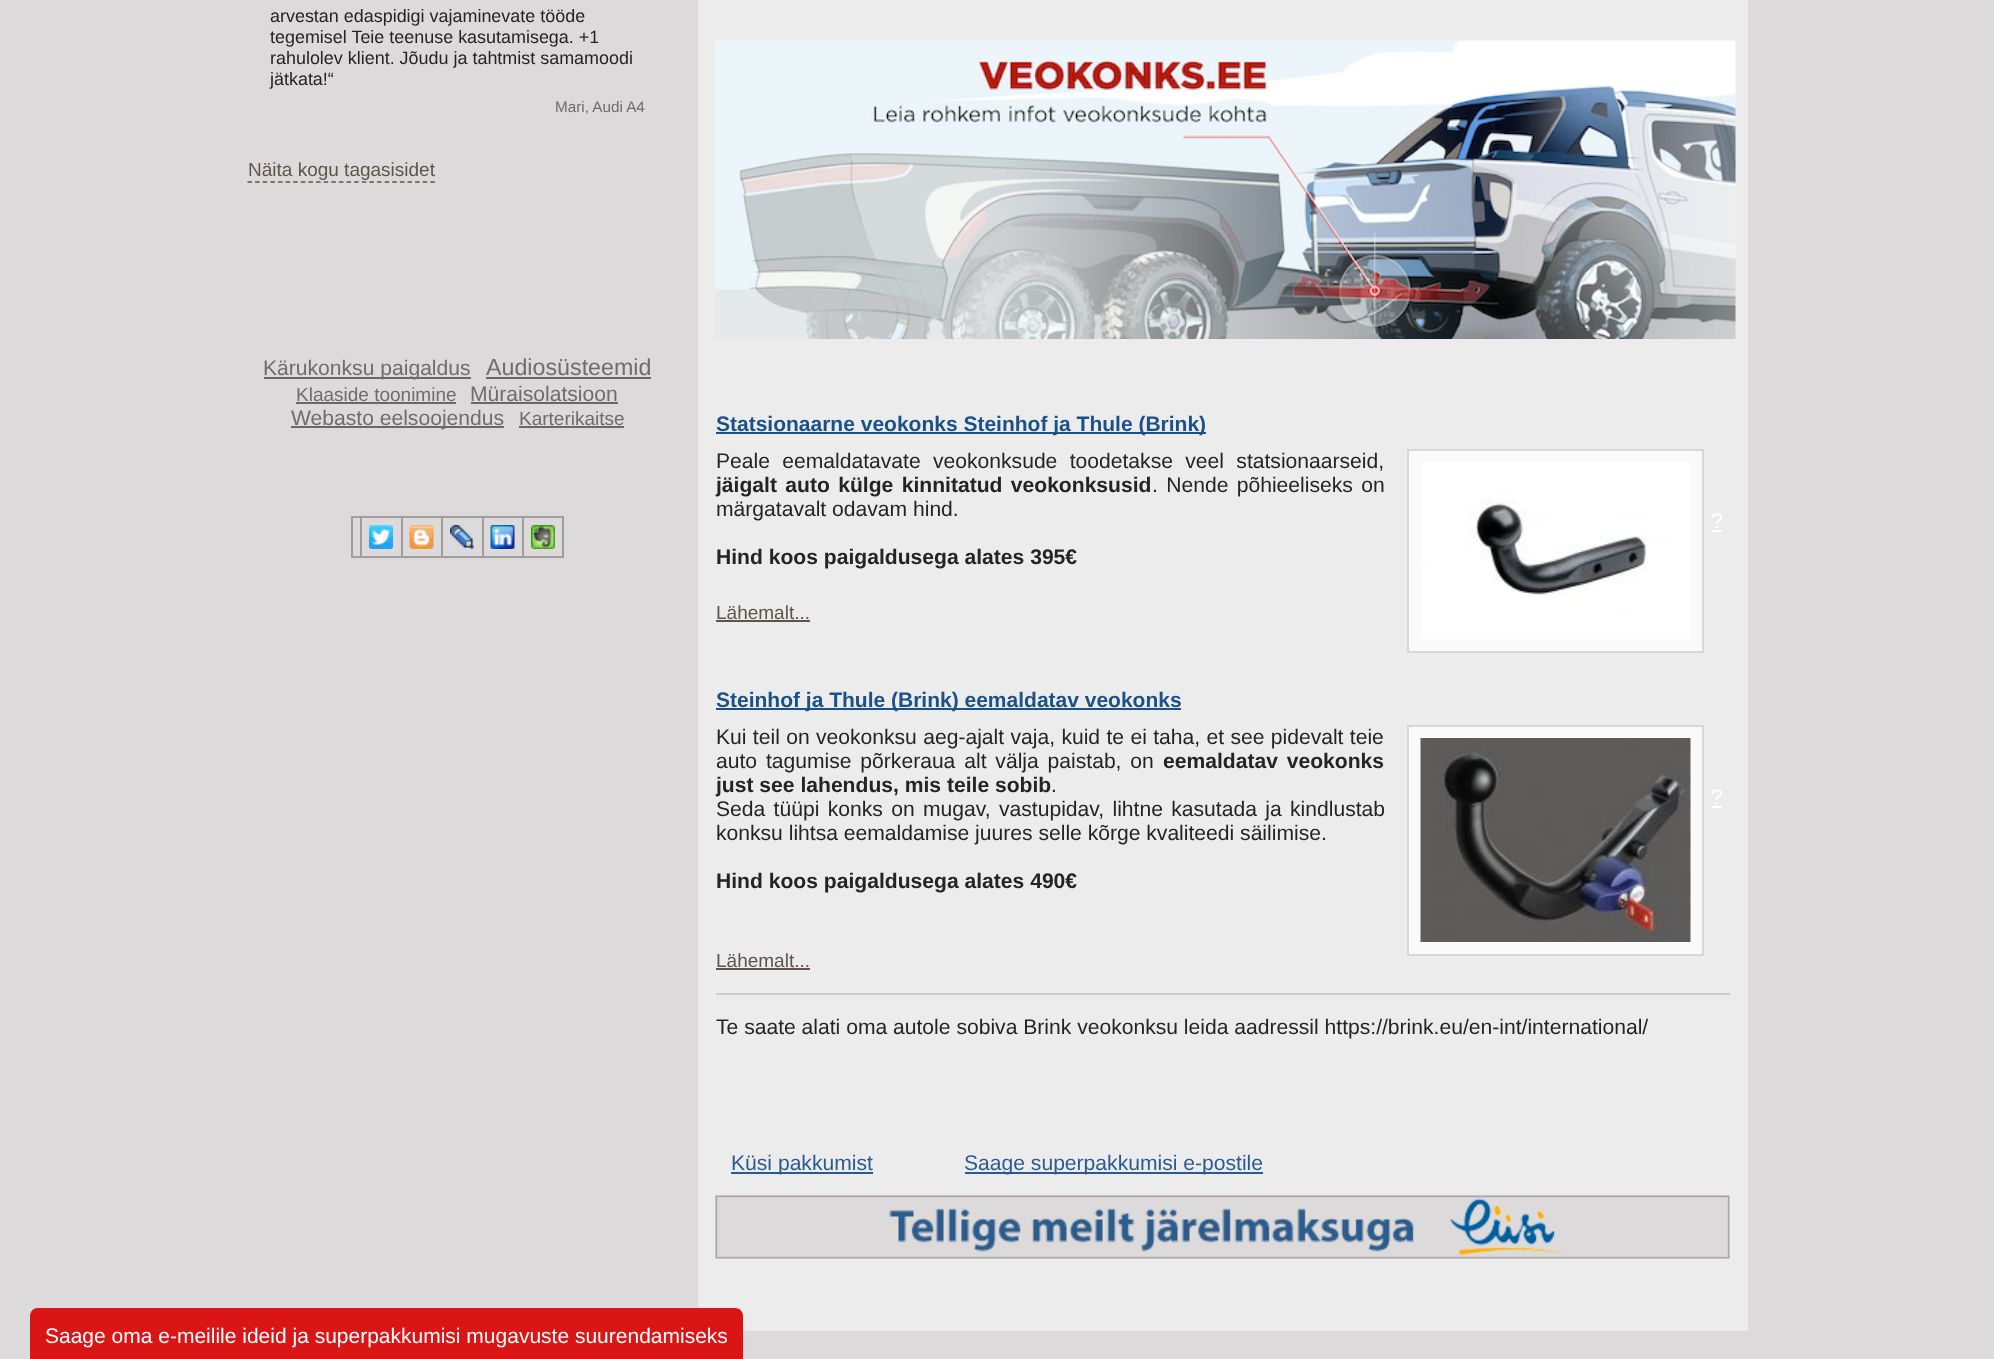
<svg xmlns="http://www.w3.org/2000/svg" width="1994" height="1359">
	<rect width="100%" height="100%" fill="#DCDADB" />
	<g font-family="Liberation Sans" font-size="17.95" fill="#252323">
		<text x="270" y="22">arvestan edaspidigi vajaminevate tööde</text>
		<text x="270" y="43">tegemisel Teie teenuse kasutamisega. +1</text>
		<text x="270" y="64">rahulolev klient. Jõudu ja tahtmist samamoodi</text>
		<text x="270" y="85">jätkata!“</text>
	</g>
	<text x="555" y="112" font-family="Liberation Sans" font-size="15.25" fill="#6D6D6D">Mari, Audi A4</text>
	<text x="248" y="176" font-family="Liberation Sans" font-size="19" fill="#5D5648">Näita kogu tagasisidet</text>
	<path d="M247.5 182H435" fill="none" stroke="#5D5648" stroke-width="1.5" stroke-dasharray="4.5 3.12" />
	<rect x="264" y="377" width="207" height="2" fill="#686868" />
	<text x="263" y="375" font-family="Liberation Sans" font-size="21.1" fill="#6D6D6D">Kärukonksu paigaldus</text>
	<text x="486" y="375" font-family="Liberation Sans" font-size="23.25" fill="#6D6D6D">Audiosüsteemid</text>
	<rect x="486" y="377" width="165" height="2" fill="#686868" />
	<text x="296" y="401" font-family="Liberation Sans" font-size="19" fill="#6D6D6D">Klaaside toonimine</text>
	<rect x="296" y="402" width="160" height="2" fill="#686868" />
	<text x="470" y="401" font-family="Liberation Sans" font-size="21.1" fill="#6D6D6D">Müraisolatsioon</text>
	<rect x="471" y="402" width="147" height="2" fill="#686868" />
	<rect x="291" y="426" width="213" height="2" fill="#686868" />
	<text x="291" y="425" font-family="Liberation Sans" font-size="21.1" fill="#6D6D6D">Webasto eelsoojendus</text>
	<text x="519" y="425" font-family="Liberation Sans" font-size="19" fill="#6D6D6D">Karterikaitse</text>
	<rect x="519" y="426" width="105" height="2" fill="#686868" />
	<rect x="352" y="517" width="211" height="40" fill="none" stroke="#A39E9D" stroke-width="2" />
	<rect x="360" y="518" width="2" height="39" fill="#A39E9D" />
	<image x="369" y="525" width="24" height="24" href="assets/img1.png" />
	<rect x="401" y="518" width="2" height="39" fill="#A39E9D" />
	<image x="409" y="525" width="25" height="24" href="assets/img2.png" />
	<rect x="441" y="518" width="2" height="39" fill="#A39E9D" />
	<image x="450" y="525" width="24" height="24" href="assets/img3.png" />
	<rect x="482" y="518" width="2" height="39" fill="#A39E9D" />
	<image x="490" y="525" width="25" height="24" href="assets/img4.png" />
	<rect x="522" y="518" width="2" height="39" fill="#A39E9D" />
	<image x="531" y="525" width="24" height="24" href="assets/img5.png" />
	<rect x="698" y="0" width="1050" height="1331" fill="#ECECEC" />
	<image x="715" y="40" width="1021" height="299" href="assets/img6.png" />
	<rect x="716" y="432" width="490" height="2" fill="#1B5187" />
	<text x="716" y="431" font-family="Liberation Sans" font-size="21" font-weight="700" fill="#1B5187">Statsionaarne veokonks Steinhof ja Thule (Brink)</text>
	<text x="716" y="468" word-spacing="6.5" font-family="Liberation Sans" font-size="21.1" fill="#252323">Peale eemaldatavate veokonksude toodetakse veel statsionaarseid,</text>
	<text x="716" y="492" word-spacing="2.5" font-family="Liberation Sans" font-size="21.1" font-weight="700" fill="#252323">jäigalt auto külge kinnitatud veokonksusid</text>
	<g font-family="Liberation Sans" font-size="21.1" fill="#252323">
		<text x="1152" y="492" word-spacing="2.5">. Nende põhieeliseks on</text>
		<text x="716" y="516">märgatavalt odavam hind.</text>
	</g>
	<rect x="1408" y="450" width="295" height="202" fill="#FAFAFA" stroke="#D7D7D7" stroke-width="2" />
	<image x="1421" y="462" width="269" height="177" href="assets/img7.png" />
	<text x="1711" y="528" font-family="Liberation Sans" font-size="21.1" fill="#FFFFFF">?</text>
	<rect x="1712" y="530" width="10" height="2" fill="#FFFFFF" />
	<text x="716" y="564" font-family="Liberation Sans" font-size="21.1" font-weight="700" fill="#252323">Hind koos paigaldusega alates 395€</text>
	<text x="716" y="619" font-family="Liberation Sans" font-size="19" fill="#5D5648">Lähemalt...</text>
	<rect x="716" y="620" width="94" height="2" fill="#5D5648" />
	<rect x="716" y="708" width="465" height="2" fill="#1B5187" />
	<text x="716" y="707" font-family="Liberation Sans" font-size="21" font-weight="700" fill="#1B5187">Steinhof ja Thule (Brink) eemaldatav veokonks</text>
	<g font-family="Liberation Sans" font-size="21.1" fill="#252323">
		<text x="716" y="744" word-spacing="0.5">Kui teil on veokonksu aeg-ajalt vaja, kuid te ei taha, et see pidevalt teie</text>
		<text x="716" y="768" word-spacing="3">auto tagumise põrkeraua alt välja paistab, on</text>
	</g>
	<g font-family="Liberation Sans" font-size="21.1" font-weight="700" fill="#252323">
		<text x="1163" y="768" word-spacing="3">eemaldatav veokonks</text>
		<text x="716" y="792">just see lahendus, mis teile sobib</text>
	</g>
	<g font-family="Liberation Sans" font-size="21.1" fill="#252323">
		<text x="1051" y="792">.</text>
		<text x="716" y="816" word-spacing="2.5">Seda tüüpi konks on mugav, vastupidav, lihtne kasutada ja kindlustab</text>
		<text x="716" y="840">konksu lihtsa eemaldamise juures selle kõrge kvaliteedi säilimise.</text>
	</g>
	<rect x="1408" y="726" width="295" height="229" fill="#FAFAFA" stroke="#D7D7D7" stroke-width="2" />
	<image x="1420" y="738" width="271" height="204" href="assets/img8.png" />
	<text x="1711" y="804" font-family="Liberation Sans" font-size="21.1" fill="#FFFFFF">?</text>
	<rect x="1712" y="806" width="10" height="2" fill="#FFFFFF" />
	<text x="716" y="888" font-family="Liberation Sans" font-size="21.1" font-weight="700" fill="#252323">Hind koos paigaldusega alates 490€</text>
	<text x="716" y="967" font-family="Liberation Sans" font-size="19" fill="#5D5648">Lähemalt...</text>
	<rect x="716" y="968" width="94" height="2" fill="#5D5648" />
	<rect x="716" y="993" width="1014" height="2" fill="#CCCCCC" />
	<text x="716" y="1034" font-family="Liberation Sans" font-size="21.1" fill="#252323">Te saate alati oma autole sobiva Brink veokonksu leida aadressil https://brink.eu/en-int/international/</text>
	<rect x="731" y="1172" width="142" height="2" fill="#2B5A92" />
	<text x="731" y="1170" font-family="Liberation Sans" font-size="21.1" fill="#2B5A92">Küsi pakkumist</text>
	<rect x="965" y="1172" width="298" height="2" fill="#2B5A92" />
	<text x="964" y="1170" font-family="Liberation Sans" font-size="21.1" fill="#2B5A92">Saage superpakkumisi e-postile</text>
	<image x="715" y="1195" width="1015" height="64" href="assets/img9.png" />
	<path d="M38 1308H735C739.5 1308 743 1311.5 743 1316V1359H30V1316C30 1311.5 33.5 1308 38 1308Z" fill="#D91515" />
	<text x="45" y="1343" font-family="Liberation Sans" font-size="21" fill="#FFFFFF">Saage oma e-meilile ideid ja superpakkumisi mugavuste suurendamiseks</text>
</svg>
